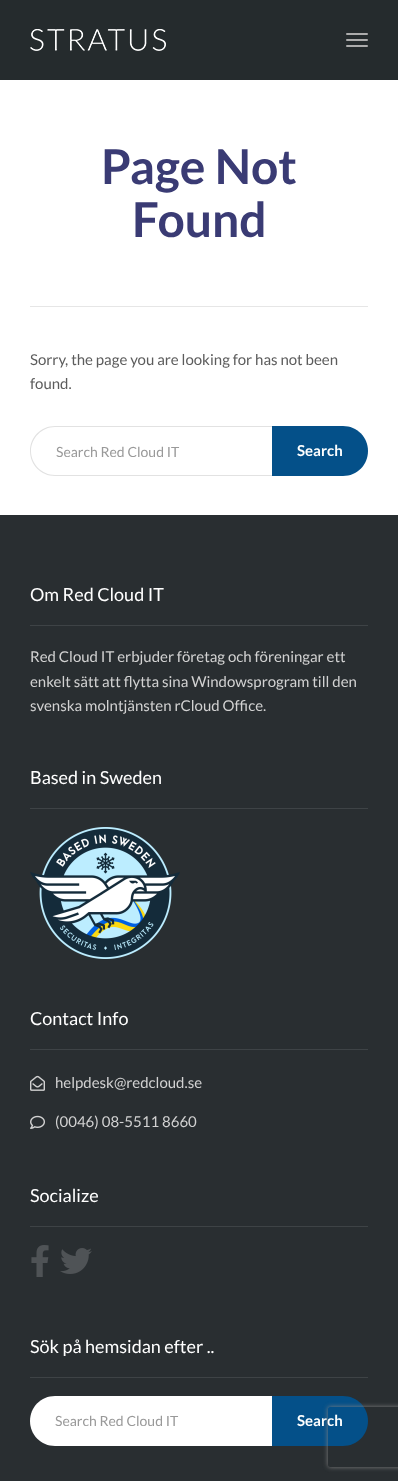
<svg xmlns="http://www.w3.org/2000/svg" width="398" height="1481">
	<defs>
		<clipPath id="clip1"><path d="M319 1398H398V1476H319ZM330 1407H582C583 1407 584 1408 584 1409V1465C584 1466 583 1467 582 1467H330C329 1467 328 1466 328 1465V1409C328 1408 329 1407 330 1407Z" clip-rule="evenodd" /></clipPath>
	</defs>
	<rect width="100%" height="100%" fill="#FFFFFF" />
	<rect x="0" y="0" width="398" height="80" fill="#252B2D" />
	<image x="30" y="29" width="136" height="22" href="assets/img1.png" />
	<rect x="346" y="33" width="22" height="2" rx="1" fill="#ACACAC" />
	<rect x="346" y="39" width="22" height="2" rx="1" fill="#ACACAC" />
	<rect x="346" y="45" width="22" height="2" rx="1" fill="#ACACAC" />
	<rect x="30" y="306" width="338" height="1" fill="#E6E6E6" />
	<g font-family="Lato" font-size="48" font-weight="700" fill="#3A3B74">
		<text x="101" y="184">Page Not</text>
		<text x="132" y="237">Found</text>
	</g>
	<g font-family="Lato" font-size="15" fill="#5C5C5C">
		<text x="30" y="365">Sorry, the page you are looking for has not been</text>
		<text x="30" y="389">found.</text>
	</g>
	<path d="M55 426H272V476H55C41 476 30 465 30 451C30 437 41 426 55 426ZM55 427H272V475H55C42 475 31 464 31 451C31 438 42 427 55 427Z" fill="#E2E2E2" fill-rule="evenodd" />
	<text x="56" y="457" font-family="Lato" font-size="14" fill="#999999">Search Red Cloud IT</text>
	<path d="M272 426H343C357 426 368 437 368 451C368 465 357 476 343 476H272Z" fill="#045089" />
	<text x="297" y="456" font-family="Lato" font-size="15" font-weight="700" fill="#FFFFFF">Search</text>
	<rect x="0" y="515" width="398" height="966" fill="#292E31" />
	<rect x="30" y="625" width="338" height="1" fill="#3E4346" />
	<text x="30" y="601" font-family="Lato" font-size="18" fill="#FFFFFF">Om Red Cloud IT</text>
	<g font-family="Lato" font-size="15" fill="#D2D2D2">
		<text x="30" y="662">Red Cloud IT erbjuder företag och föreningar ett</text>
		<text x="30" y="687">enkelt sätt att flytta sina Windowsprogram till den</text>
		<text x="30" y="711">svenska molntjänsten rCloud Office.</text>
	</g>
	<rect x="30" y="808" width="338" height="1" fill="#3E4346" />
	<text x="30" y="784" font-family="Lato" font-size="18" fill="#FFFFFF">Based in Sweden</text>
	<image x="30" y="827" width="150" height="132" href="assets/img2.png" />
	<rect x="30" y="1049" width="338" height="1" fill="#3E4346" />
	<text x="30" y="1025" font-family="Lato" font-size="18" fill="#FFFFFF">Contact Info</text>
	<image x="30" y="1075" width="15" height="16" href="assets/img3.png" />
	<text x="55" y="1088" font-family="Lato" font-size="15" fill="#D2D2D2">helpdesk@redcloud.se</text>
	<image x="30" y="1115" width="15" height="14" href="assets/img4.png" />
	<text x="55" y="1127" font-family="Lato" font-size="15" fill="#D2D2D2">(0046) 08-5511 8660</text>
	<rect x="30" y="1226" width="338" height="1" fill="#3E4346" />
	<text x="30" y="1202" font-family="Lato" font-size="18" fill="#FFFFFF">Socialize</text>
	<image x="31" y="1245" width="18" height="32" href="assets/img5.png" />
	<image x="60" y="1248" width="32" height="26" href="assets/img6.png" />
	<rect x="30" y="1377" width="338" height="1" fill="#3E4346" />
	<text x="30" y="1353" font-family="Lato" font-size="18" fill="#FFFFFF">Sök på hemsidan efter ..</text>
	<path d="M55 1396H272V1446H55C41 1446 30 1435 30 1421C30 1407 41 1396 55 1396Z" fill="#FFFFFF" />
	<text x="55" y="1426" font-family="Lato" font-size="14" fill="#999999">Search Red Cloud IT</text>
	<path d="M272 1396H343C357 1396 368 1407 368 1421C368 1435 357 1446 343 1446H272Z" fill="#045089" />
	<text x="297" y="1426" font-family="Lato" font-size="15" font-weight="700" fill="#FFFFFF">Search</text>
	<g clip-path="url(#clip1)">
		<rect x="328" y="1407" width="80" height="60" rx="2" fill="#808080" filter="blur(2.5px)" />
	</g>
</svg>
